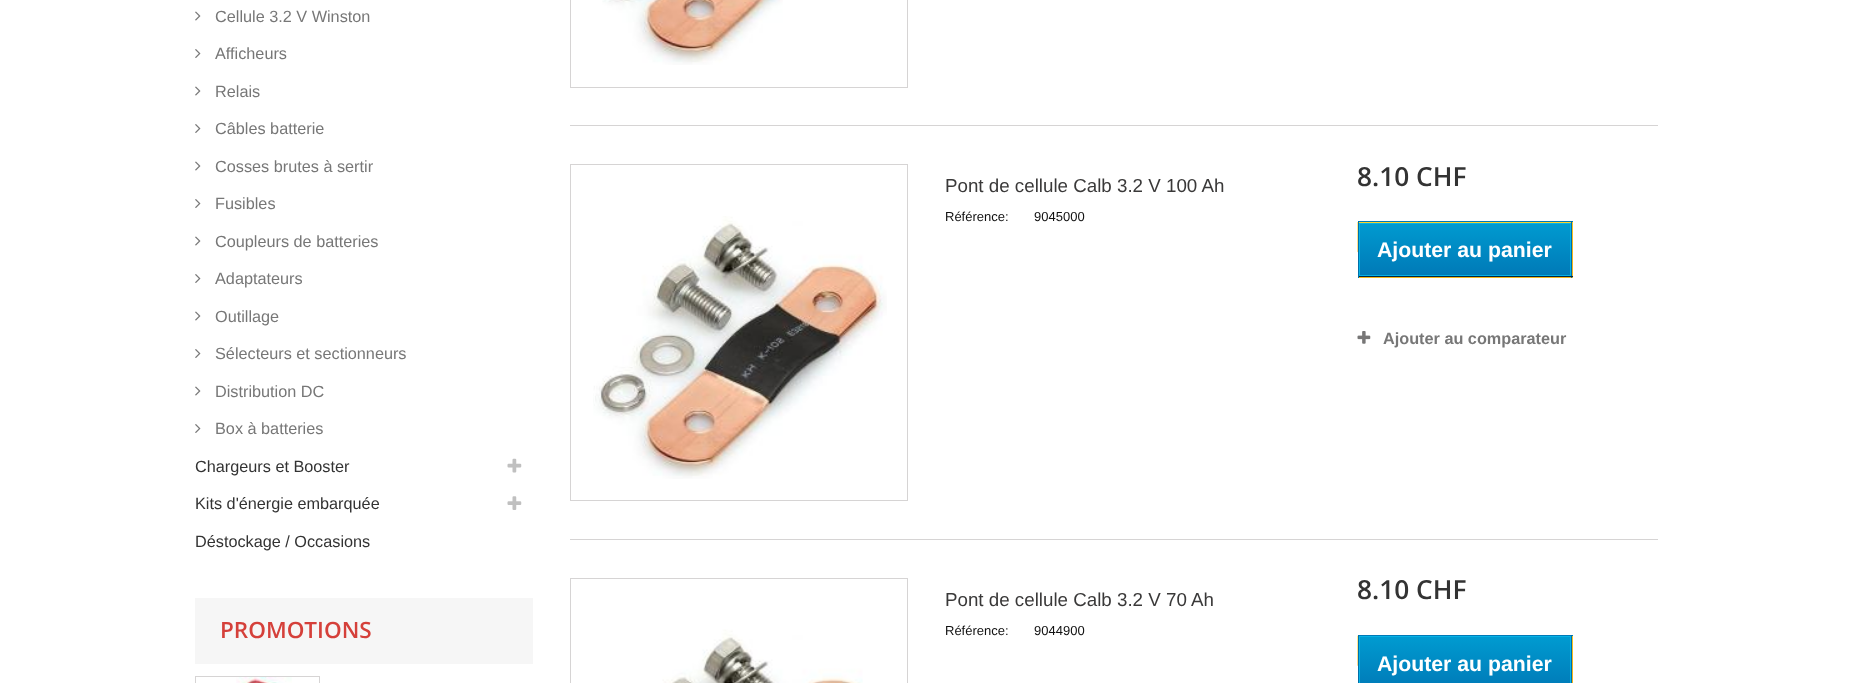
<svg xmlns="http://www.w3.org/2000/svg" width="1852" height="683">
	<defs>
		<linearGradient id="g1" gradientUnits="userSpaceOnUse" x1="1465" y1="224" x2="1465" y2="275"><stop offset="0" stop-color="#009AD0" /><stop offset="1" stop-color="#007AB7" /></linearGradient>
		<linearGradient id="g2" gradientUnits="userSpaceOnUse" x1="1465" y1="638" x2="1465" y2="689"><stop offset="0" stop-color="#009AD0" /><stop offset="1" stop-color="#007AB7" /></linearGradient>
	</defs>
	<rect width="100%" height="100%" fill="#FFFFFF" />
	<image x="195" y="11" width="6" height="10" href="assets/img1.png" />
	<text x="215" y="22" font-family="Liberation Sans" font-size="16.25" fill="#777777">Cellule 3.2 V Winston</text>
	<image x="195" y="49" width="6" height="9" href="assets/img2.png" />
	<text x="215" y="59" font-family="Liberation Sans" font-size="16.25" fill="#777777">Afficheurs</text>
	<image x="195" y="86" width="6" height="10" href="assets/img1.png" />
	<text x="215" y="97" font-family="Liberation Sans" font-size="16.25" fill="#777777">Relais</text>
	<image x="195" y="124" width="6" height="9" href="assets/img2.png" />
	<text x="215" y="134" font-family="Liberation Sans" font-size="16.25" fill="#777777">Câbles batterie</text>
	<image x="195" y="161" width="6" height="10" href="assets/img1.png" />
	<text x="215" y="172" font-family="Liberation Sans" font-size="16.25" fill="#777777">Cosses brutes à sertir</text>
	<image x="195" y="199" width="6" height="9" href="assets/img2.png" />
	<text x="215" y="209" font-family="Liberation Sans" font-size="16.25" fill="#777777">Fusibles</text>
	<image x="195" y="236" width="6" height="10" href="assets/img1.png" />
	<text x="215" y="247" font-family="Liberation Sans" font-size="16.25" fill="#777777">Coupleurs de batteries</text>
	<image x="195" y="274" width="6" height="9" href="assets/img2.png" />
	<text x="215" y="284" font-family="Liberation Sans" font-size="16.25" fill="#777777">Adaptateurs</text>
	<image x="195" y="311" width="6" height="10" href="assets/img1.png" />
	<text x="215" y="322" font-family="Liberation Sans" font-size="16.25" fill="#777777">Outillage</text>
	<image x="195" y="349" width="6" height="9" href="assets/img2.png" />
	<text x="215" y="359" font-family="Liberation Sans" font-size="16.25" fill="#777777">Sélecteurs et sectionneurs</text>
	<image x="195" y="386" width="6" height="10" href="assets/img1.png" />
	<text x="215" y="397" font-family="Liberation Sans" font-size="16.25" fill="#777777">Distribution DC</text>
	<image x="195" y="424" width="6" height="9" href="assets/img2.png" />
	<text x="215" y="434" font-family="Liberation Sans" font-size="16.25" fill="#777777">Box à batteries</text>
	<text x="195" y="472" font-family="Liberation Sans" font-size="16.25" fill="#333333">Chargeurs et Booster</text>
	<image x="507" y="458" width="15" height="15" href="assets/img3.png" />
	<text x="195" y="509" font-family="Liberation Sans" font-size="16.25" fill="#333333">Kits d'énergie embarquée</text>
	<image x="507" y="496" width="15" height="14" href="assets/img4.png" />
	<text x="195" y="547" font-family="Liberation Sans" font-size="16.25" fill="#333333">Déstockage / Occasions</text>
	<rect x="195" y="598" width="338" height="66" fill="#F6F6F6" />
	<text x="220" y="638" font-family="Open Sans" font-size="22.5" font-weight="600" fill="#D5403A">PROMOTIONS</text>
	<rect x="195.5" y="676.5" width="124" height="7" fill="none" stroke="#D6D4D4" />
	<image x="236" y="677" width="56" height="6" href="assets/img5.png" />
	<rect x="570.5" y="-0.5" width="337" height="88" fill="none" stroke="#D6D4D4" />
	<image x="602" y="0" width="181" height="65" href="assets/img6.png" />
	<rect x="570" y="125" width="1088" height="1" fill="#D6D4D4" />
	<rect x="570.5" y="164.5" width="337" height="336" fill="none" stroke="#D6D4D4" />
	<image x="593" y="216" width="294" height="263" href="assets/img7.png" />
	<text x="945" y="192" font-family="Liberation Sans" font-size="18.75" fill="#3A3939">Pont de cellule Calb 3.2 V 100 Ah</text>
	<g font-family="Liberation Sans" font-size="13" fill="#111111">
		<text x="945" y="221">Référence:</text>
		<text x="1034" y="221">9045000</text>
	</g>
	<text x="1357" y="186" font-family="Open Sans" font-size="26.25" font-weight="600" fill="#333333">8.10 CHF</text>
	<rect x="1359" y="222" width="214" height="56" fill="#F4B61B" />
	<image x="1357" y="222" width="216" height="31" href="assets/img8.png" />
	<rect x="1358" y="221" width="215" height="1" fill="#0079B6" />
	<rect x="1571" y="221" width="1" height="57" fill="#006FA8" />
	<rect x="1358" y="276" width="215" height="1" fill="#012740" />
	<rect x="1358" y="221" width="1" height="57" fill="#006FA8" />
	<rect x="1360" y="224" width="210" height="51" fill="url(#g1)" />
	<rect x="1359.5" y="223.5" width="211" height="52" fill="none" stroke="#06B2E6" />
	<text x="1377" y="257" font-family="Liberation Sans" font-size="21.25" font-weight="700" fill="#FFFFFF">Ajouter au panier</text>
	<image x="1357" y="331" width="14" height="13" href="assets/img9.png" />
	<text x="1383" y="344" font-family="Liberation Sans" font-size="16.25" font-weight="700" fill="#777777">Ajouter au comparateur</text>
	<rect x="570" y="539" width="1088" height="1" fill="#D6D4D4" />
	<rect x="570.5" y="578.5" width="337" height="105" fill="none" stroke="#D6D4D4" />
	<image x="662" y="629" width="201" height="54" href="assets/img10.png" />
	<text x="945" y="606" font-family="Liberation Sans" font-size="18.75" fill="#3A3939">Pont de cellule Calb 3.2 V 70 Ah</text>
	<g font-family="Liberation Sans" font-size="13" fill="#111111">
		<text x="945" y="635">Référence:</text>
		<text x="1034" y="635">9044900</text>
	</g>
	<text x="1357" y="599" font-family="Open Sans" font-size="26.25" font-weight="600" fill="#333333">8.10 CHF</text>
	<rect x="1572" y="636" width="1" height="47" fill="#F4B61B" />
	<image x="1357" y="635" width="216" height="31" href="assets/img11.png" />
	<rect x="1358" y="635" width="215" height="1" fill="#0079B6" />
	<rect x="1571" y="635" width="1" height="48" fill="#006FA8" />
	<rect x="1358" y="635" width="1" height="48" fill="#006FA8" />
	<rect x="1360" y="637" width="210" height="1" fill="#009AD0" />
	<rect x="1360" y="638" width="210" height="45" fill="url(#g2)" />
	<rect x="1359.5" y="636.5" width="211" height="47" fill="none" stroke="#06B2E6" />
	<text x="1377" y="671" font-family="Liberation Sans" font-size="21.25" font-weight="700" fill="#FFFFFF">Ajouter au panier</text>
</svg>
